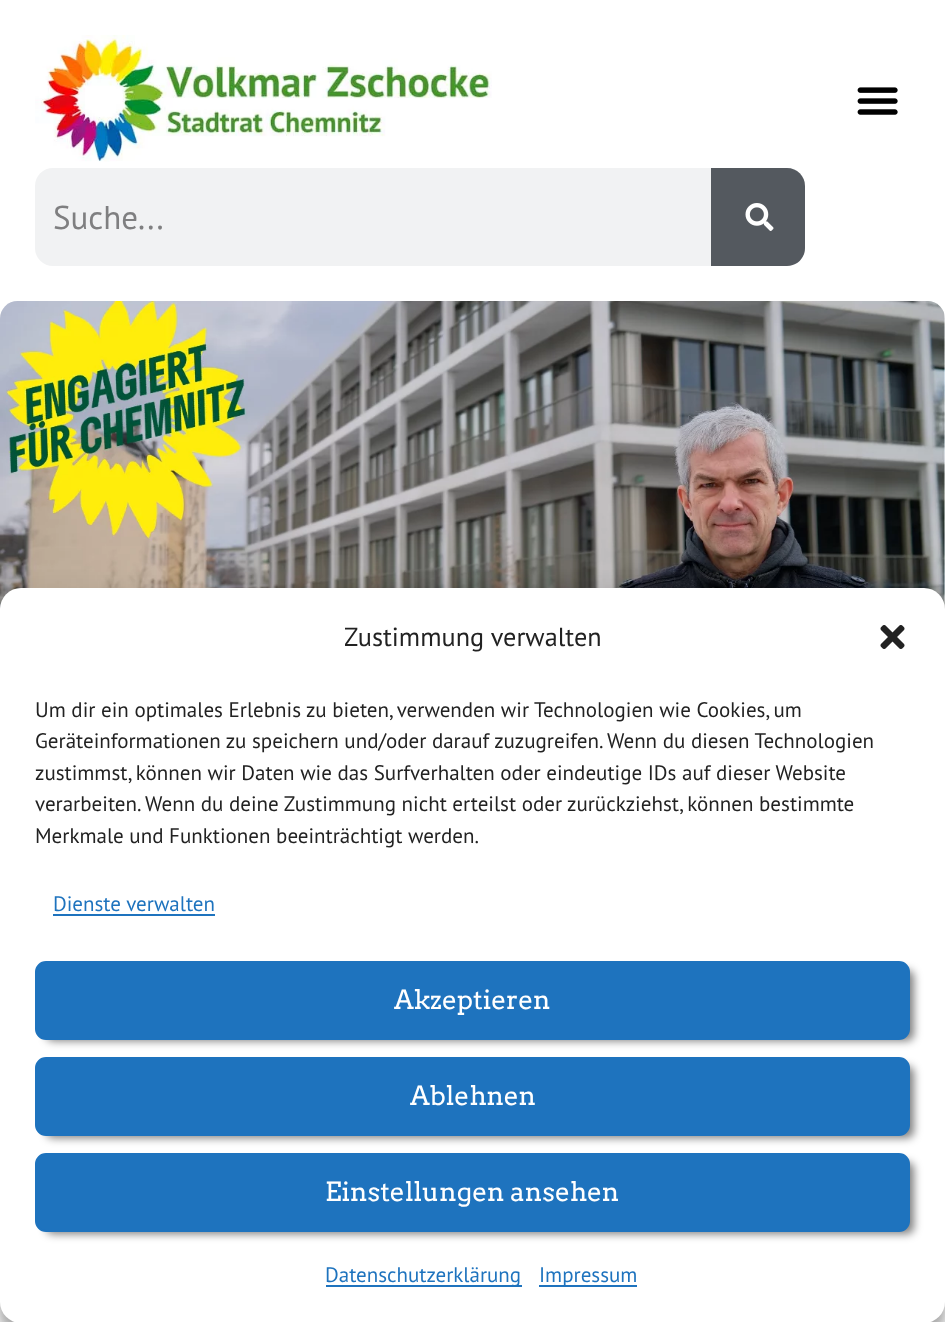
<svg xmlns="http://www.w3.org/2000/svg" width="945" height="1322">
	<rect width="100%" height="100%" fill="#FFFFFF" />
	<image x="35" y="35" width="457" height="127" href="assets/img1.png" />
	<image x="857" y="87" width="41" height="28" href="assets/img2.png" />
	<rect x="35" y="168" width="770" height="98" rx="18" fill="#F1F2F3" />
	<text x="53" y="229" font-family="PT Sans" font-size="33" fill="#7F7F80">Suche...</text>
	<path d="M711 168H787C797 168 805 176 805 186V248C805 258 797 266 787 266H711Z" fill="#54595F" />
	<image x="745" y="203" width="29" height="28" href="assets/img3.png" />
	<image x="0" y="301" width="945" height="308" href="assets/img4.png" />
	<rect x="0" y="599" width="945" height="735" rx="21" fill="#000000" fill-opacity="0.23" filter="blur(5px)" />
	<rect x="0" y="606" width="945" height="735" rx="21" fill="#000000" fill-opacity="0.19" filter="blur(17.5px)" />
	<rect x="0" y="588" width="945" height="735" rx="21" fill="#FFFFFF" />
	<text x="344" y="646" font-family="PT Sans" font-size="26.25" fill="#222222">Zustimmung verwalten</text>
	<image x="880" y="625" width="25" height="24" href="assets/img5.png" />
	<g font-family="PT Sans" font-size="21" fill="#222222">
		<text x="35" y="717">Um dir ein optimales Erlebnis zu bieten, verwenden wir Technologien wie Cookies, um</text>
		<text x="35" y="748">Geräteinformationen zu speichern und/oder darauf zuzugreifen. Wenn du diesen Technologien</text>
		<text x="35" y="780">zustimmst, können wir Daten wie das Surfverhalten oder eindeutige IDs auf dieser Website</text>
		<text x="35" y="811">verarbeiten. Wenn du deine Zustimmung nicht erteilst oder zurückziehst, können bestimmte</text>
		<text x="35" y="843">Merkmale und Funktionen beeinträchtigt werden.</text>
	</g>
	<text x="53" y="911" font-family="PT Sans" font-size="21" fill="#1E73BE">Dienste verwalten</text>
	<rect x="53" y="914" width="162" height="2" fill="#1E73BE" />
	<rect x="46" y="970" width="868" height="71" rx="7" fill="#000000" fill-opacity="0.5" filter="blur(4.5px)" />
	<rect x="36" y="962" width="873" height="77" rx="10" fill="#1E73BE" stroke="#1E73BE" stroke-width="2" />
	<text x="394" y="1009" font-family="Arvo" font-size="26.25" fill="#FFFFFF">Akzeptieren</text>
	<rect x="46" y="1066" width="868" height="72" rx="7" fill="#000000" fill-opacity="0.5" filter="blur(4.5px)" />
	<rect x="36" y="1058" width="873" height="77" rx="10" fill="#1E73BE" stroke="#1E73BE" stroke-width="2" />
	<text x="410" y="1105" font-family="Arvo" font-size="26.25" fill="#FFFFFF">Ablehnen</text>
	<rect x="46" y="1162" width="868" height="72" rx="7" fill="#000000" fill-opacity="0.5" filter="blur(4.5px)" />
	<rect x="36" y="1154" width="873" height="77" rx="10" fill="#1E73BE" stroke="#1E73BE" stroke-width="2" />
	<text x="325" y="1201" font-family="Arvo" font-size="26.25" fill="#FFFFFF">Einstellungen ansehen</text>
	<rect x="326" y="1285" width="196" height="2" fill="#1E73BE" />
	<text x="325" y="1282" font-family="PT Sans" font-size="21" fill="#1E73BE">Datenschutzerklärung</text>
	<rect x="539" y="1285" width="98" height="2" fill="#1E73BE" />
	<text x="539" y="1282" font-family="PT Sans" font-size="21" fill="#1E73BE">Impressum</text>
</svg>
